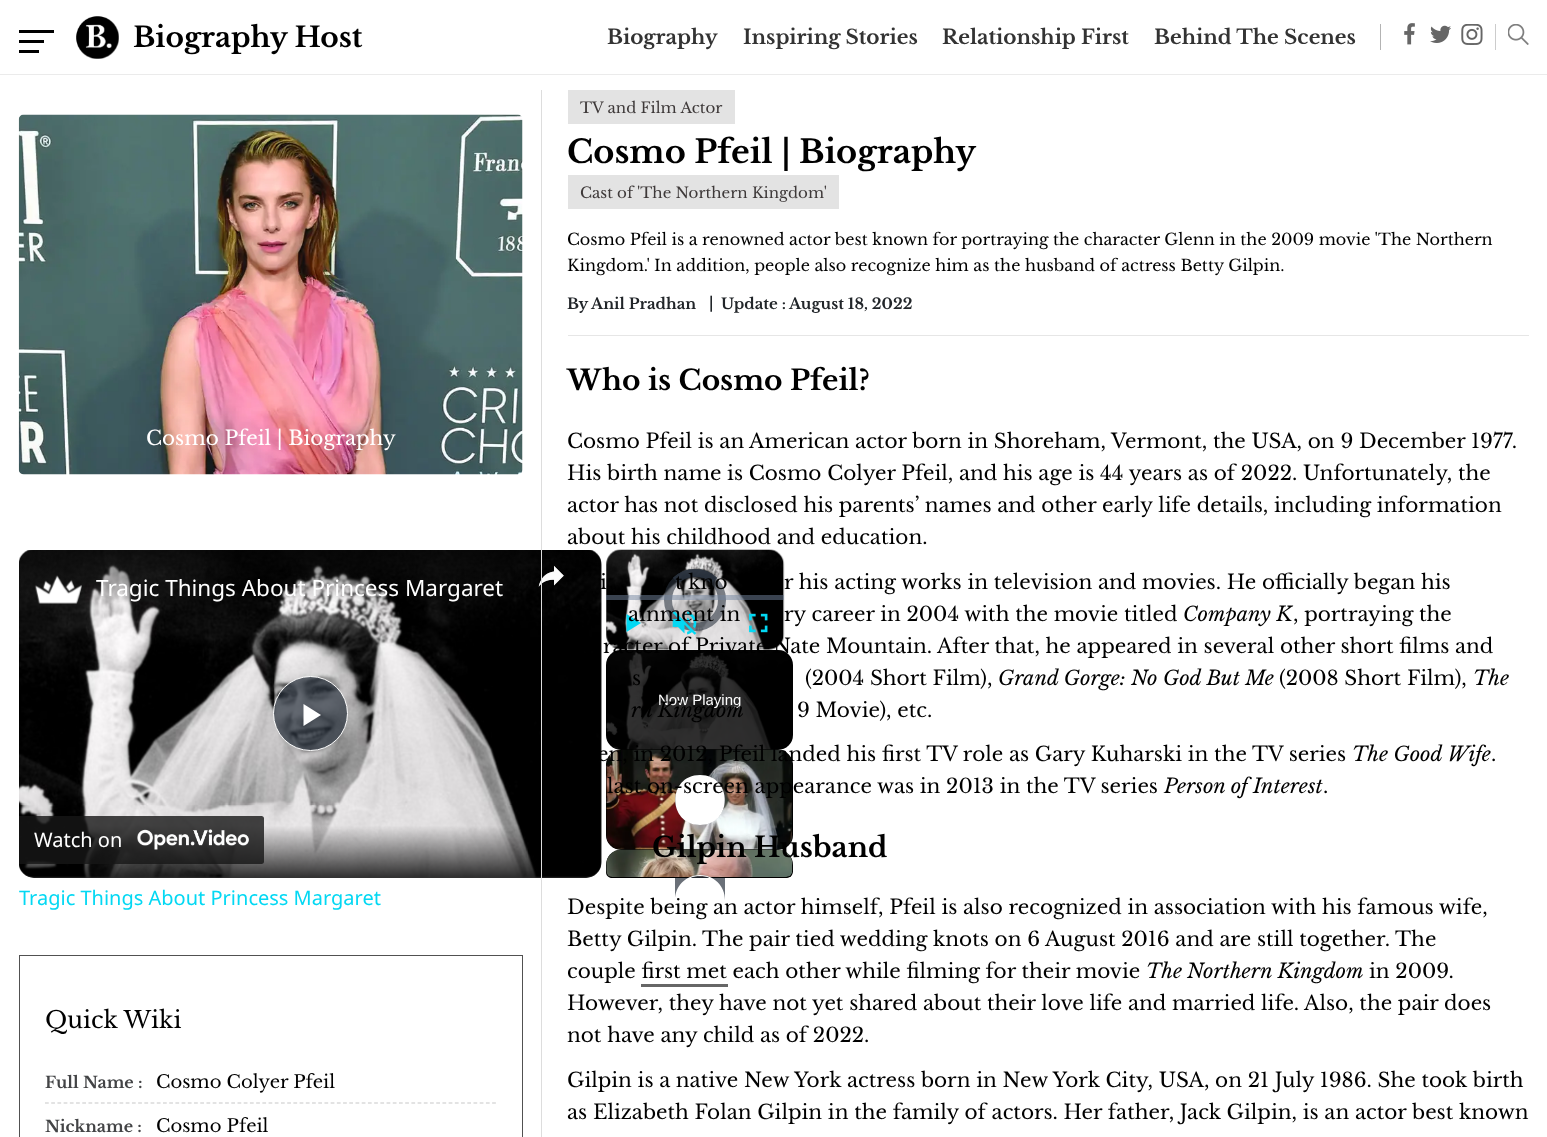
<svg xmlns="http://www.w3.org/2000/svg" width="1547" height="1137">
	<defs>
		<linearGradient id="g1" gradientUnits="userSpaceOnUse" x1="310" y1="550" x2="310" y2="878"><stop offset="0" stop-color="#000000" stop-opacity="0.6" /><stop offset="0.16" stop-color="#000000" stop-opacity="0" /><stop offset="0.84" stop-color="#000000" stop-opacity="0" /><stop offset="1" stop-color="#000000" stop-opacity="0.8" /></linearGradient>
		<clipPath id="clip1"><rect x="601" y="550" width="192" height="328" rx="6" /></clipPath>
	</defs>
	<rect width="100%" height="100%" fill="#FFFFFF" />
	<rect x="0" y="74" width="1547" height="1" fill="#EBEBEB" />
	<rect x="19" y="30" width="35" height="3" fill="#000000" />
	<rect x="19" y="40" width="25" height="3" fill="#000000" />
	<rect x="19" y="50" width="20" height="3" fill="#000000" />
	<image x="76" y="16" width="43" height="43" href="assets/img1.png" />
	<text x="133" y="47" font-family="Libre Baskerville" font-size="28" font-weight="700" fill="#000000">Biography Host</text>
	<g font-family="Libre Baskerville" font-size="20" font-weight="700" fill="#333333">
		<text x="607" y="44">Biography</text>
		<text x="743" y="44">Inspiring Stories</text>
		<text x="942" y="44">Relationship First</text>
		<text x="1154" y="44">Behind The Scenes</text>
	</g>
	<rect x="1380" y="24" width="1" height="26" fill="#B3B3B3" />
	<image x="1404" y="23" width="11" height="22" href="assets/img2.png" />
	<image x="1430" y="25" width="21" height="18" href="assets/img3.png" />
	<image x="1461" y="24" width="22" height="21" href="assets/img4.png" />
	<rect x="1495" y="24" width="1" height="26" fill="#CCCCCC" />
	<image x="1508" y="24" width="21" height="21" href="assets/img5.png" />
	<image x="18" y="114" width="505" height="361" href="assets/img6.png" />
	<text x="146" y="445" font-family="Libre Baskerville" font-size="20" fill="#FFFFFF">Cosmo Pfeil | Biography</text>
	<image x="19" y="550" width="583" height="328" href="assets/img7.png" />
	<image x="19" y="550" width="583" height="328" href="assets/img8.png" />
	<circle cx="310.5" cy="713.5" r="37" fill="#2B333F" fill-opacity="0.7" stroke="#FFFFFF" />
	<path d="M303.5 704V726L321 715Z" fill="#FFFFFF" />
	<rect x="19" y="550" width="582" height="328" rx="15" fill="url(#g1)" />
	<image x="34" y="575" width="48" height="29" href="assets/img9.png" />
	<text x="96" y="596" font-family="Noto Sans" font-size="22.5" fill="#FFFFFF">Tragic Things About Princess Margaret</text>
	<image x="538" y="566" width="26" height="21" href="assets/img10.png" />
	<path d="M19 816H261.5C263 816 264 817 264 818.5V861.5C264 863 263 864 261.5 864H19Z" fill="#171717" fill-opacity="0.8" />
	<text x="34" y="847" font-family="Noto Sans" font-size="20" fill="#FFFFFF">Watch on</text>
	<image x="137" y="829" width="112" height="21" href="assets/img11.png" />
	<image x="606" y="549" width="179" height="101" href="assets/img12.png" />
	<circle cx="695" cy="600" r="27" fill="none" stroke="#2B333F" stroke-opacity="0.59" stroke-width="8" />
	<path d="M675.5 580.5C686 570 704 570 714.5 580.5" fill="none" stroke="#2B333F" stroke-opacity="0.59" stroke-width="7.5" />
	<path d="M675.5 580.5C686 570 704 570 714.5 580.5" fill="none" stroke="#2B333F" stroke-opacity="0.59" stroke-width="7.5" />
	<rect x="606" y="595" width="178" height="5" fill="#73859F" fill-opacity="0.5" />
	<path d="M626.5 614V632L641 623Z" fill="#03D8F3" />
	<image x="672" y="611" width="25" height="24" href="assets/img13.png" />
	<image x="749" y="613" width="19" height="20" href="assets/img14.png" />
	<rect x="606" y="650" width="187" height="100" rx="15" fill="#000000" />
	<image x="606" y="649" width="184" height="101" href="assets/img15.png" />
	<text x="658" y="705" font-family="Liberation Sans" font-size="15" fill="#FFFFFF">Now Playing</text>
	<rect x="606" y="750" width="187" height="100" rx="15" fill="#000000" />
	<image x="606" y="749" width="187" height="101" href="assets/img16.png" />
	<circle cx="700" cy="800" r="25" fill="#2B333F" fill-opacity="0.7" />
	<path d="M700 775C667 775 667 825 700 825C733 825 733 775 700 775Z" fill="#FFFFFF" />
	<g clip-path="url(#clip1)">
		<path d="M621 850H778C786.5 850 793 856.5 793 865V872C793 875.5 790.5 878 787 878H612C608.5 878 606 875.5 606 872V865C606 856.5 612.5 850 621 850Z" fill="#000000" />
	</g>
	<image x="606" y="849" width="187" height="28" href="assets/img17.png" />
	<path d="M700 875C714 875 725 886 725 900V878H675V900C675 886 686 875 700 875Z" fill="#2B333F" fill-opacity="0.7" />
	<path d="M700 875C704.5 875 708.5 876 712 878H709.5C706.5 876.5 703.5 876 700 876C696.5 876 693.5 876.5 690.5 878H688C691.5 876 695.5 875 700 875Z" fill="#FFFFFF" />
	<text x="19" y="905" font-family="Noto Sans" font-size="20" fill="#03D8F3">Tragic Things About Princess Margaret</text>
	<rect x="19.5" y="955.5" width="503" height="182" fill="none" stroke="#515151" />
	<text x="45" y="1028" font-family="Libre Baskerville" font-size="23.5" fill="#000000">Quick Wiki</text>
	<text x="45" y="1088" font-family="Libre Baskerville" font-size="16" font-weight="700" fill="#434446">Full Name :</text>
	<text x="156" y="1088" font-family="Libre Baskerville" font-size="18" fill="#000000">Cosmo Colyer Pfeil</text>
	<path d="M45 1103H496" fill="none" stroke="#C7C7C8" stroke-width="1.2" stroke-dasharray="3.75 2.46" />
	<text x="45" y="1132" font-family="Libre Baskerville" font-size="16" font-weight="700" fill="#434446">Nickname :</text>
	<text x="156" y="1132" font-family="Libre Baskerville" font-size="18" fill="#000000">Cosmo Pfeil</text>
	<rect x="541" y="90" width="1" height="1047" fill="#DDDDDD" />
	<rect x="568" y="90" width="167" height="34" fill="#E3E3E3" />
	<text x="580" y="113" font-family="Libre Baskerville" font-size="15" fill="#3E3939">TV and Film Actor</text>
	<text x="567" y="163" font-family="Libre Baskerville" font-size="32" font-weight="700" fill="#000000">Cosmo Pfeil | Biography</text>
	<rect x="568" y="175" width="271" height="34" fill="#E3E3E3" />
	<text x="580" y="198" font-family="Libre Baskerville" font-size="15" fill="#3E3939">Cast of 'The Northern Kingdom'</text>
	<g font-family="Libre Baskerville" font-size="16" fill="#000000">
		<text x="567" y="245">Cosmo Pfeil is a renowned actor best known for portraying the character Glenn in the 2009 movie 'The Northern</text>
		<text x="567" y="271">Kingdom.' In addition, people also recognize him as the husband of actress Betty Gilpin.</text>
	</g>
	<g font-family="Libre Baskerville" font-size="15" font-weight="700" fill="#212529">
		<text x="567" y="309">By</text>
		<text x="591" y="309">Anil Pradhan</text>
		<text x="709" y="308">|</text>
		<text x="721" y="309">Update :</text>
		<text x="789" y="309">August 18, 2022</text>
	</g>
	<rect x="568" y="335" width="961" height="1" fill="#E6E6E6" />
	<text x="567" y="390" font-family="Libre Baskerville" font-size="28" font-weight="700" fill="#000000">Who is Cosmo Pfeil?</text>
	<g font-family="Libre Baskerville" font-size="20" fill="#000000">
		<text x="567" y="448">Cosmo Pfeil is an American actor born in Shoreham, Vermont, the USA, on 9 December 1977.</text>
		<text x="567" y="480">His birth name is Cosmo Colyer Pfeil, and his age is 44 years as of 2022. Unfortunately, the</text>
		<text x="567" y="512">actor has not disclosed his parents’ names and other early life details, including information</text>
		<text x="567" y="544">about his childhood and education.</text>
		<text x="600" y="589">i</text>
		<text x="675" y="589">t kno</text>
		<text x="784" y="589">r his acting works in television and movies. He officially began his</text>
		<text x="628" y="621">ainment in</text>
		<text x="784" y="621">ry career in 2004 with the movie titled</text>
	</g>
	<text x="1183" y="621" font-family="Libre Baskerville" font-size="20" font-style="italic" fill="#000000">Company K</text>
	<g font-family="Libre Baskerville" font-size="20" fill="#000000">
		<text x="1293" y="621">, portraying the</text>
		<text x="603" y="653">racter of Private Nate Mountain. After that, he appeared in several other short films and</text>
		<text x="632" y="685">s</text>
		<text x="805" y="685">(2004 Short Film),</text>
	</g>
	<text x="998" y="685" font-family="Libre Baskerville" font-size="20" font-style="italic" fill="#000000">Grand Gorge: No God But Me</text>
	<text x="1279" y="685" font-family="Libre Baskerville" font-size="20" fill="#000000">(2008 Short Film),</text>
	<g font-family="Libre Baskerville" font-size="20" font-style="italic" fill="#000000">
		<text x="1473" y="685">The</text>
		<text x="631" y="717">rn Kingdom</text>
	</g>
	<g font-family="Libre Baskerville" font-size="20" fill="#000000">
		<text x="797" y="717">9 Movie), etc.</text>
		<text x="597" y="761">en, in 2012, Pfeil landed his first TV role as Gary Kuharski in the TV series</text>
	</g>
	<text x="1352" y="761" font-family="Libre Baskerville" font-size="20" font-style="italic" fill="#000000">The Good Wife</text>
	<g font-family="Libre Baskerville" font-size="20" fill="#000000">
		<text x="1491" y="761">.</text>
		<text x="607" y="793">last on-screen appearance was in 2013 in the TV series</text>
	</g>
	<text x="1164" y="793" font-family="Libre Baskerville" font-size="20" font-style="italic" fill="#000000">Person of Interest</text>
	<text x="1323" y="793" font-family="Libre Baskerville" font-size="20" fill="#000000">.</text>
	<text x="652" y="857" font-family="Libre Baskerville" font-size="28" font-weight="700" fill="#000000">Gilpin Husband</text>
	<g font-family="Libre Baskerville" font-size="20" fill="#000000">
		<text x="567" y="914">Despite being an actor himself, Pfeil is also recognized in association with his famous wife,</text>
		<text x="567" y="946">Betty Gilpin. The pair tied wedding knots on 6 August 2016 and are still together. The</text>
		<text x="567" y="978">couple first met each other while filming for their movie</text>
	</g>
	<text x="1146" y="978" font-family="Libre Baskerville" font-size="20" font-style="italic" fill="#000000">The Northern Kingdom</text>
	<text x="1369" y="978" font-family="Libre Baskerville" font-size="20" fill="#000000">in 2009.</text>
	<rect x="641" y="984" width="87" height="3" fill="#666666" />
	<g font-family="Libre Baskerville" font-size="20" fill="#000000">
		<text x="567" y="1010">However, they have not yet shared about their love life and married life. Also, the pair does</text>
		<text x="567" y="1042">not have any child as of 2022.</text>
		<text x="567" y="1087">Gilpin is a native New York actress born in New York City, USA, on 21 July 1986. She took birth</text>
		<text x="567" y="1119">as Elizabeth Folan Gilpin in the family of actors. Her father, Jack Gilpin, is an actor best known</text>
	</g>
</svg>
